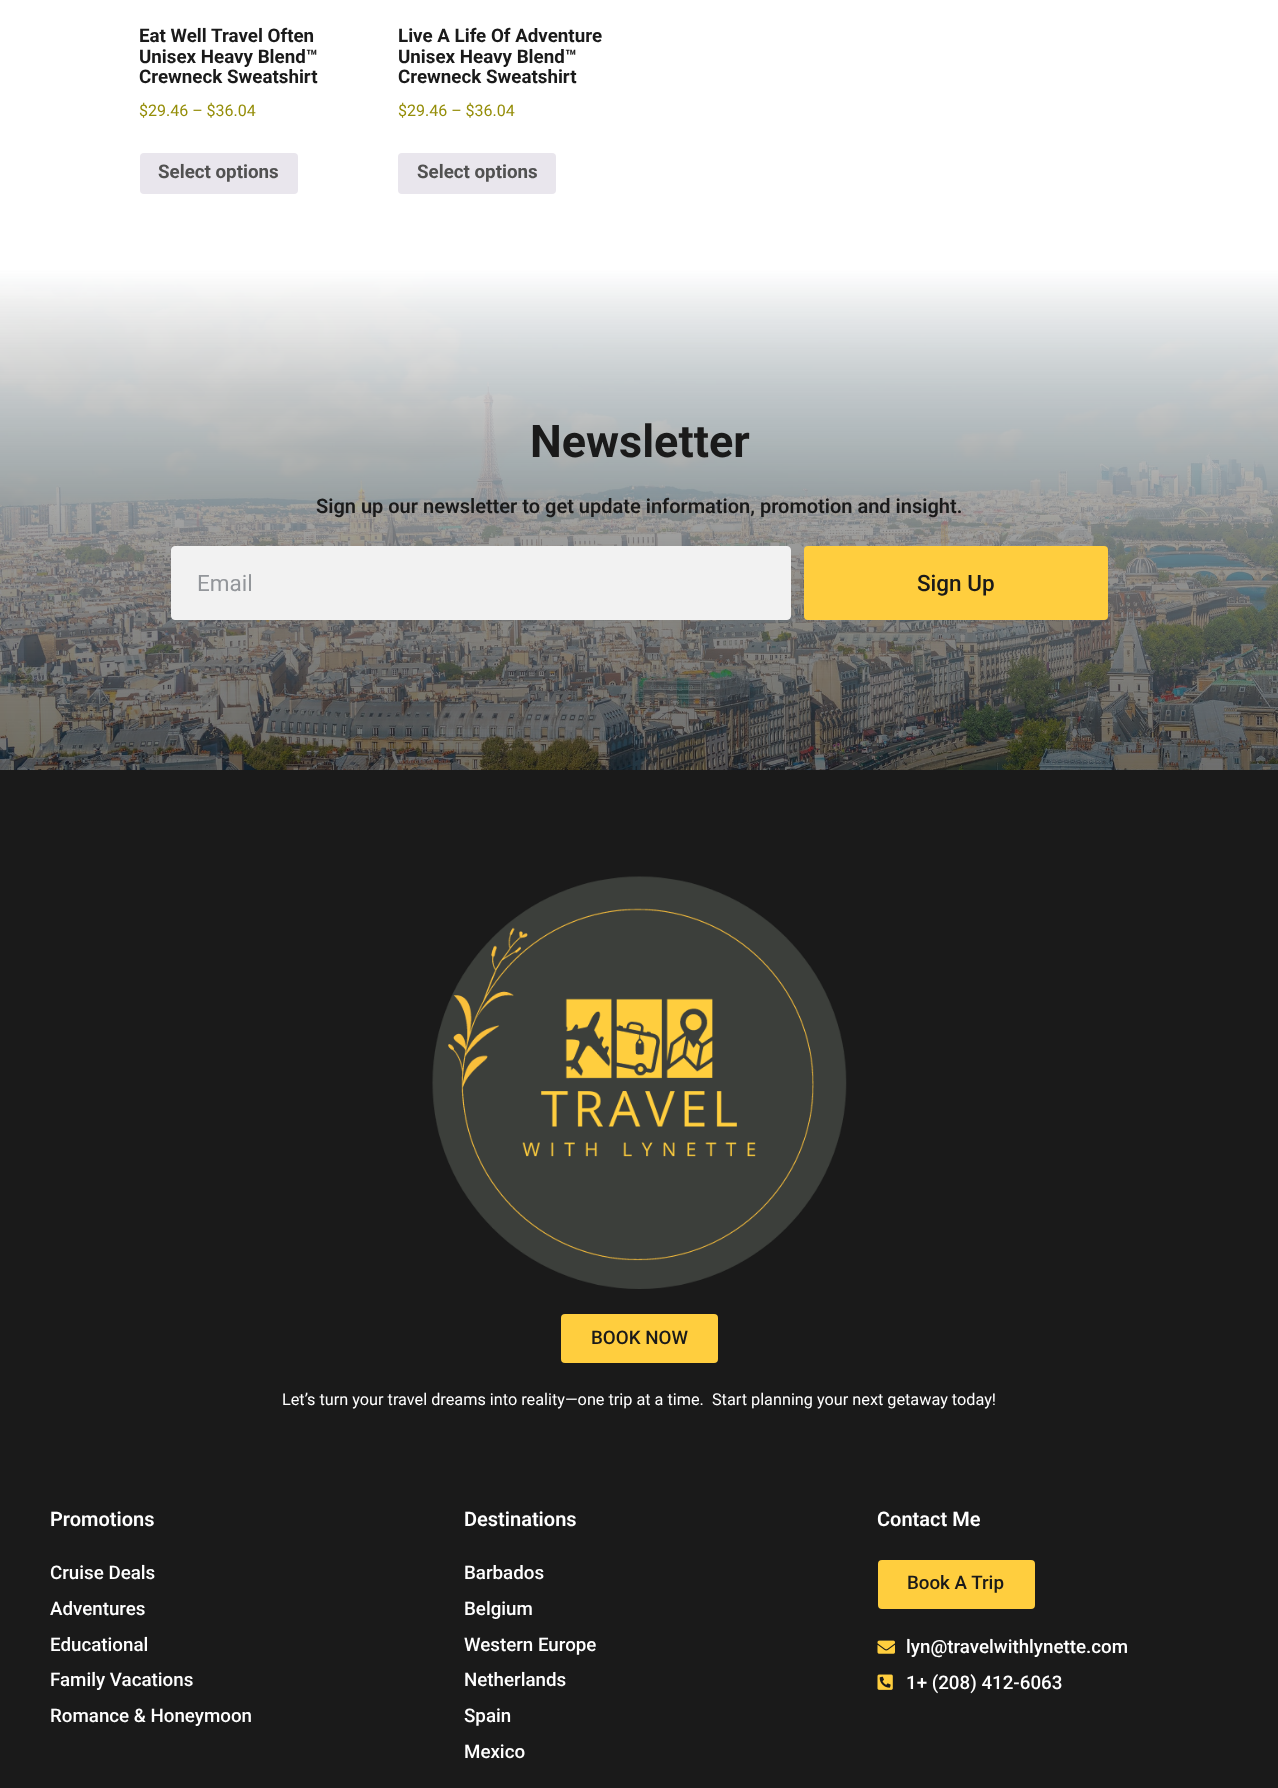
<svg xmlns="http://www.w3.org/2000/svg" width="1278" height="1788">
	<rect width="100%" height="100%" fill="#FFFFFF" />
	<g font-family="Roboto" font-size="18.75" font-weight="700" fill="#1A1A1A">
		<text x="139" y="42">Eat Well Travel Often</text>
		<text x="139" y="63">Unisex Heavy Blend™</text>
		<text x="139" y="83">Crewneck Sweatshirt</text>
	</g>
	<text x="139" y="116" font-family="Roboto" font-size="16" fill="#958E09">$29.46 – $36.04</text>
	<rect x="140" y="153" width="158" height="41" rx="4" fill="#E9E6ED" />
	<text x="158" y="178" font-family="Roboto" font-size="18.75" font-weight="700" fill="#515151">Select options</text>
	<g font-family="Roboto" font-size="18.75" font-weight="700" fill="#1A1A1A">
		<text x="398" y="42">Live A Life Of Adventure</text>
		<text x="398" y="63">Unisex Heavy Blend™</text>
		<text x="398" y="83">Crewneck Sweatshirt</text>
	</g>
	<text x="398" y="116" font-family="Roboto" font-size="16" fill="#958E09">$29.46 – $36.04</text>
	<rect x="398" y="153" width="158" height="41" rx="4" fill="#E9E6ED" />
	<text x="417" y="178" font-family="Roboto" font-size="18.75" font-weight="700" fill="#515151">Select options</text>
	<image x="0" y="269" width="1278" height="501" href="assets/img1.png" />
	<text x="530" y="457" font-family="Roboto" font-size="45" font-weight="700" fill="#1A1A1A">Newsletter</text>
	<text x="316" y="513" font-family="Roboto" font-size="20" font-weight="600" fill="#1A1A1A">Sign up our newsletter to get update information, promotion and insight.</text>
	<rect x="171.5" y="546.5" width="619" height="73" rx="3.5" fill="#F2F2F2" stroke="#F2F2F2" />
	<text x="197" y="591" font-family="Roboto" font-size="22.5" fill="#93969A">Email</text>
	<rect x="804" y="546" width="304" height="74" rx="4" fill="#FFCE3E" />
	<text x="917" y="591" font-family="Roboto" font-size="22.5" font-weight="500" fill="#1A1A1A">Sign Up</text>
	<rect x="0" y="770" width="1278" height="1018" fill="#1A1A1A" />
	<image x="432" y="876" width="415" height="413" href="assets/img2.png" />
	<rect x="561" y="1314" width="157" height="49" rx="4" fill="#FFCE3E" />
	<text x="591" y="1344" font-family="Roboto" font-size="18.75" font-weight="500" fill="#1A1A1A">BOOK NOW</text>
	<text x="282" y="1405" font-family="Roboto" font-size="16.25" fill="#FFFFFF" xml:space="preserve">Let’s turn your travel dreams into reality—one trip at a time.  Start planning your next getaway today!</text>
	<text x="50" y="1526" font-family="Roboto" font-size="20" font-weight="600" fill="#FFFFFF">Promotions</text>
	<g font-family="Roboto" font-size="18.75" font-weight="500" fill="#FFFFFF">
		<text x="50" y="1579">Cruise Deals</text>
		<text x="50" y="1615">Adventures</text>
		<text x="50" y="1651">Educational</text>
		<text x="50" y="1686">Family Vacations</text>
		<text x="50" y="1722">Romance &amp; Honeymoon</text>
	</g>
	<text x="464" y="1526" font-family="Roboto" font-size="20" font-weight="600" fill="#FFFFFF">Destinations</text>
	<g font-family="Roboto" font-size="18.75" font-weight="500" fill="#FFFFFF">
		<text x="464" y="1579">Barbados</text>
		<text x="464" y="1615">Belgium</text>
		<text x="464" y="1651">Western Europe</text>
		<text x="464" y="1686">Netherlands</text>
		<text x="464" y="1722">Spain</text>
		<text x="464" y="1758">Mexico</text>
	</g>
	<text x="877" y="1526" font-family="Roboto" font-size="20" font-weight="600" fill="#FFFFFF">Contact Me</text>
	<rect x="878" y="1560" width="157" height="49" rx="4" fill="#FFCE3E" />
	<text x="907" y="1589" font-family="Roboto" font-size="18.75" font-weight="500" fill="#1A1A1A">Book A Trip</text>
	<image x="877" y="1640" width="18" height="14" href="assets/img3.png" />
	<text x="906" y="1653" font-family="Roboto" font-size="18.75" font-weight="500" fill="#FFFFFF">lyn@travelwithlynette.com</text>
	<image x="877" y="1674" width="16" height="16" href="assets/img4.png" />
	<text x="906" y="1689" font-family="Roboto" font-size="18.75" font-weight="500" fill="#FFFFFF">1+ (208) 412-6063</text>
</svg>
